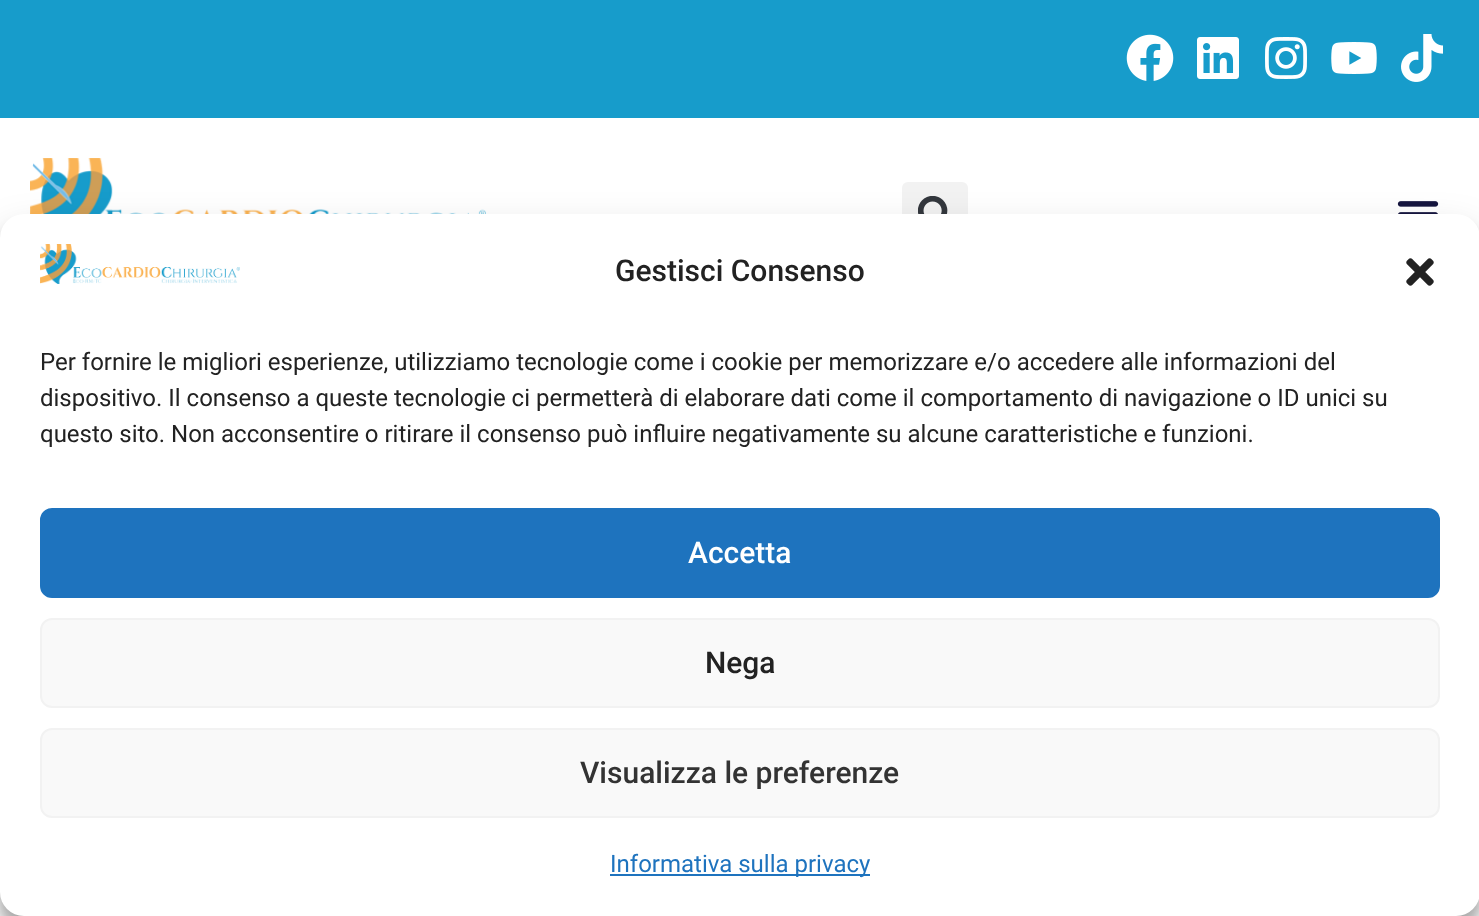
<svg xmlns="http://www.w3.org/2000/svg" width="1479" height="916">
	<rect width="100%" height="100%" fill="#FFFFFF" />
	<rect x="0" y="0" width="1479" height="118" fill="#179CCB" />
	<image x="1126" y="34" width="48" height="47" href="assets/img1.png" />
	<image x="1197" y="37" width="42" height="42" href="assets/img2.png" />
	<image x="1265" y="37" width="42" height="42" href="assets/img3.png" />
	<image x="1331" y="42" width="46" height="32" href="assets/img4.png" />
	<image x="1401" y="34" width="42" height="48" href="assets/img5.png" />
	<image x="30" y="158" width="456" height="56" href="assets/img6.png" />
	<rect x="902" y="182" width="66" height="66" rx="6" fill="#F2F2F2" />
	<image x="918" y="196" width="30" height="18" href="assets/img7.png" />
	<image x="1397" y="201" width="42" height="13" href="assets/img8.png" />
	<rect x="0" y="226" width="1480" height="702" rx="24" fill="#000000" fill-opacity="0.23" filter="blur(6px)" />
	<rect x="0" y="234" width="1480" height="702" rx="24" fill="#000000" fill-opacity="0.19" filter="blur(20px)" />
	<rect x="0" y="214" width="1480" height="702" rx="24" fill="#FFFFFF" />
	<image x="40" y="244" width="200" height="40" href="assets/img9.png" />
	<text x="615" y="281" font-family="Roboto" font-size="30" font-weight="500" fill="#222222">Gestisci Consenso</text>
	<image x="1406" y="258" width="28" height="28" href="assets/img10.png" />
	<g font-family="Roboto" font-size="24" fill="#222222">
		<text x="40" y="370">Per fornire le migliori esperienze, utilizziamo tecnologie come i cookie per memorizzare e/o accedere alle informazioni del</text>
		<text x="40" y="406">dispositivo. Il consenso a queste tecnologie ci permetterà di elaborare dati come il comportamento di navigazione o ID unici su</text>
		<text x="40" y="442">questo sito. Non acconsentire o ritirare il consenso può influire negativamente su alcune caratteristiche e funzioni.</text>
	</g>
	<rect x="41" y="509" width="1398" height="88" rx="11" fill="#1E73BE" stroke="#1E73BE" stroke-width="2" />
	<text x="688" y="563" font-family="Roboto" font-size="30" font-weight="500" fill="#FFFFFF">Accetta</text>
	<rect x="41" y="619" width="1398" height="88" rx="11" fill="#F9F9F9" stroke="#F2F2F2" stroke-width="2" />
	<text x="705" y="673" font-family="Roboto" font-size="30" font-weight="500" fill="#222222">Nega</text>
	<rect x="41" y="729" width="1398" height="88" rx="11" fill="#F9F9F9" stroke="#F2F2F2" stroke-width="2" />
	<text x="580" y="783" font-family="Roboto" font-size="30" font-weight="500" fill="#333333">Visualizza le preferenze</text>
	<rect x="610" y="874" width="260" height="2" fill="#1E73BE" />
	<text x="610" y="872" font-family="Roboto" font-size="24" fill="#1E73BE">Informativa sulla privacy</text>
</svg>
